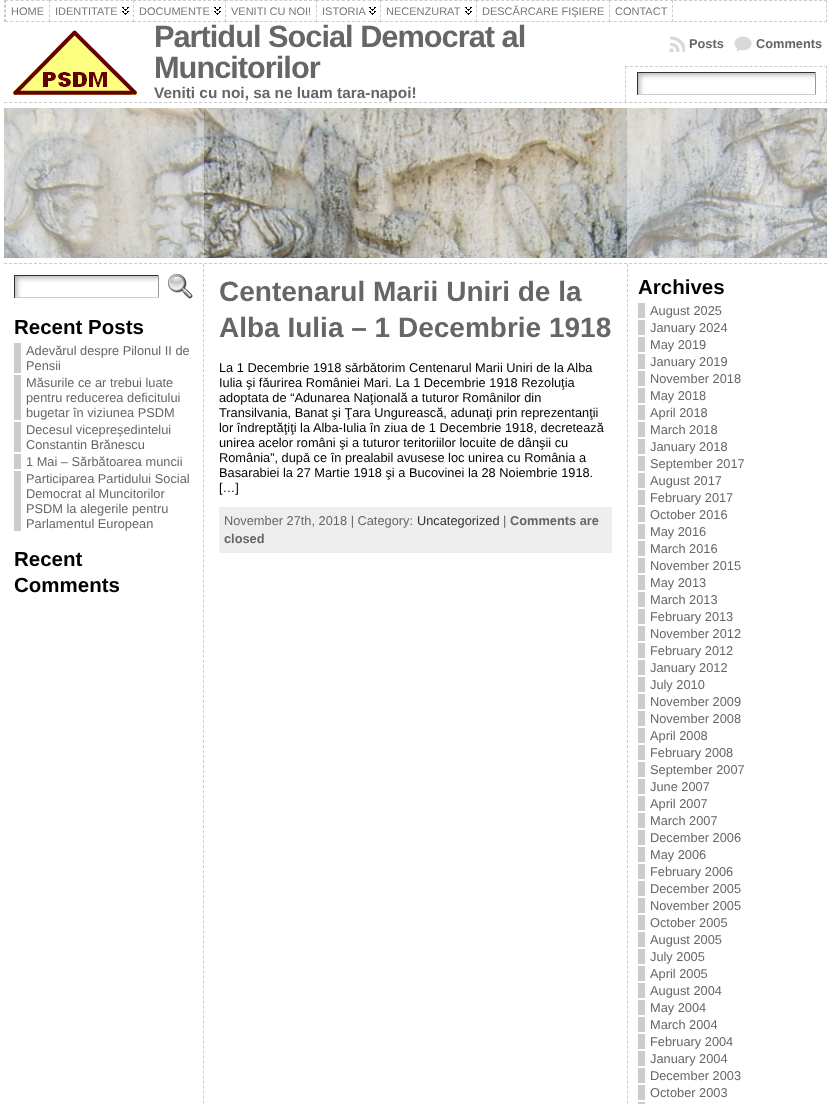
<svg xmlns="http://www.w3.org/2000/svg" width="831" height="1104">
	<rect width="100%" height="100%" fill="#FFFFFF" />
	<path d="M4 .5H827" fill="none" stroke="#CCCCCC" stroke-dasharray="3 2" />
	<path d="M826.5 0V22" fill="none" stroke="#CCCCCC" stroke-dasharray="3 1.75" />
	<path d="M4 21.5H827" fill="none" stroke="#CCCCCC" stroke-dasharray="3 2" />
	<path d="M4.5 0V22" fill="none" stroke="#CCCCCC" stroke-dasharray="3 1.75" />
	<rect x="5" y="0" width="42" height="22" fill="#FFFFFF" />
	<path d="M5 .5H50M5 21.5H50" fill="none" stroke="#CCCCCC" stroke-dasharray="3 2.25" />
	<path d="M5.5 0V22" fill="none" stroke="#CCCCCC" stroke-dasharray="3 1.75" />
	<text x="11" y="15" font-family="Liberation Sans" font-size="11" fill="#777777">HOME</text>
	<rect x="49" y="0" width="83" height="22" fill="#FFFFFF" />
	<image x="122" y="7" width="7" height="8" href="assets/img1.png" />
	<path d="M49 .5H134" fill="none" stroke="#CCCCCC" stroke-dasharray="3 2.12" />
	<path d="M49 21.5H134" fill="none" stroke="#CCCCCC" stroke-dasharray="3 2.12" />
	<path d="M49.5 0V22" fill="none" stroke="#CCCCCC" stroke-dasharray="3 1.75" />
	<text x="55" y="15" font-family="Liberation Sans" font-size="11" fill="#777777">IDENTITATE</text>
	<rect x="133" y="0" width="92" height="22" fill="#FFFFFF" />
	<image x="214" y="7" width="7" height="8" href="assets/img1.png" />
	<path d="M133 .5H226" fill="none" stroke="#CCCCCC" stroke-dasharray="3 2" />
	<path d="M133 21.5H226" fill="none" stroke="#CCCCCC" stroke-dasharray="3 2" />
	<path d="M133.5 0V22" fill="none" stroke="#CCCCCC" stroke-dasharray="3 1.75" />
	<text x="139" y="15" font-family="Liberation Sans" font-size="11" fill="#777777">DOCUMENTE</text>
	<rect x="225" y="0" width="91" height="22" fill="#FFFFFF" />
	<path d="M225 .5H317" fill="none" stroke="#CCCCCC" stroke-dasharray="3 1.94" />
	<path d="M225 21.5H317" fill="none" stroke="#CCCCCC" stroke-dasharray="3 1.94" />
	<path d="M225.5 0V22" fill="none" stroke="#CCCCCC" stroke-dasharray="3 1.75" />
	<text x="231" y="15" font-family="Liberation Sans" font-size="11" fill="#777777">VENITI CU NOI!</text>
	<rect x="316" y="0" width="64" height="22" fill="#FFFFFF" />
	<image x="369" y="7" width="7" height="8" href="assets/img1.png" />
	<path d="M316 .5H381" fill="none" stroke="#CCCCCC" stroke-dasharray="3 2.17" />
	<path d="M316 21.5H381" fill="none" stroke="#CCCCCC" stroke-dasharray="3 2.17" />
	<path d="M316.5 0V22" fill="none" stroke="#CCCCCC" stroke-dasharray="3 1.75" />
	<text x="322" y="15" font-family="Liberation Sans" font-size="11" fill="#777777">ISTORIA</text>
	<rect x="380" y="0" width="96" height="22" fill="#FFFFFF" />
	<image x="465" y="7" width="7" height="8" href="assets/img1.png" />
	<path d="M380 .5H477" fill="none" stroke="#CCCCCC" stroke-dasharray="3 1.95" />
	<path d="M380 21.5H477" fill="none" stroke="#CCCCCC" stroke-dasharray="3 1.95" />
	<path d="M380.5 0V22" fill="none" stroke="#CCCCCC" stroke-dasharray="3 1.75" />
	<text x="386" y="15" font-family="Liberation Sans" font-size="11" fill="#777777">NECENZURAT</text>
	<rect x="476" y="0" width="131" height="22" fill="#FFFFFF" />
	<path d="M476 .5H610" fill="none" stroke="#CCCCCC" stroke-dasharray="3 2.04" />
	<path d="M476 21.5H610" fill="none" stroke="#CCCCCC" stroke-dasharray="3 2.04" />
	<path d="M476.5 0V22" fill="none" stroke="#CCCCCC" stroke-dasharray="3 1.75" />
	<text x="482" y="15" font-family="Liberation Sans" font-size="11" fill="#777777">DESCĂRCARE FIŞIERE</text>
	<rect x="609" y="0" width="63" height="22" fill="#FFFFFF" />
	<path d="M609 .5H673" fill="none" stroke="#CCCCCC" stroke-dasharray="3 2.08" />
	<path d="M672.5 0V22" fill="none" stroke="#CCCCCC" stroke-dasharray="3 1.75" />
	<path d="M609 21.5H673" fill="none" stroke="#CCCCCC" stroke-dasharray="3 2.08" />
	<path d="M609.5 0V22" fill="none" stroke="#CCCCCC" stroke-dasharray="3 1.75" />
	<text x="615" y="15" font-family="Liberation Sans" font-size="11" fill="#777777">CONTACT</text>
	<image x="13" y="30" width="124" height="65" href="assets/img2.png" />
	<g font-family="Liberation Sans" font-size="30.75" font-weight="700" letter-spacing="-1" fill="#666666">
		<text x="154" y="47">Partidul Social Democrat al</text>
		<text x="154" y="78">Muncitorilor</text>
	</g>
	<text x="154" y="98" font-family="Liberation Sans" font-size="15.4" font-weight="700" fill="#666666">Veniti cu noi, sa ne luam tara-napoi!</text>
	<image x="669" y="36" width="16" height="16" href="assets/img3.png" />
	<text x="689" y="48" font-family="Liberation Sans" font-size="12.8" font-weight="700" fill="#666666">Posts</text>
	<image x="734" y="36" width="18" height="16" href="assets/img4.png" />
	<text x="756" y="48" font-family="Liberation Sans" font-size="12.8" font-weight="700" fill="#666666">Comments</text>
	<path d="M625 66.5H827" fill="none" stroke="#CCCCCC" stroke-dasharray="3 1.98" />
	<path d="M826.5 66V102" fill="none" stroke="#CCCCCC" stroke-dasharray="3 1.71" />
	<path d="M625.5 66V102" fill="none" stroke="#CCCCCC" stroke-dasharray="3 1.71" />
	<image x="638" y="73" width="177" height="21" href="assets/img5.png" />
	<rect x="637" y="72" width="179" height="1" fill="#333333" />
	<rect x="815" y="72" width="1" height="23" fill="#999999" />
	<rect x="637" y="94" width="179" height="1" fill="#CCCCCC" />
	<rect x="637" y="72" width="1" height="23" fill="#333333" />
	<path d="M4 102.5H827" fill="none" stroke="#CCCCCC" stroke-dasharray="3 2" />
	<image x="4" y="108" width="823" height="150" href="assets/img6.png" />
	<rect x="4" y="108" width="200" height="150" fill="#FFFFFF" fill-opacity="0.4" />
	<rect x="627" y="108" width="200" height="150" fill="#FFFFFF" fill-opacity="0.4" />
	<path d="M4 263.5H827" fill="none" stroke="#CCCCCC" stroke-dasharray="3 2" />
	<path d="M203.5 264V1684" fill="none" stroke="#CCCCCC" stroke-dasharray="3 2.01" />
	<image x="15" y="276" width="143" height="21" href="assets/img7.png" />
	<rect x="14" y="275" width="145" height="1" fill="#333333" />
	<rect x="158" y="275" width="1" height="23" fill="#999999" />
	<rect x="14" y="297" width="145" height="1" fill="#CCCCCC" />
	<rect x="14" y="275" width="1" height="23" fill="#333333" />
	<image x="168" y="274" width="25" height="25" href="assets/img8.png" />
	<text x="14" y="334" font-family="Liberation Sans" font-size="20.5" font-weight="700" fill="#000000">Recent Posts</text>
	<rect x="14" y="343" width="7" height="30" fill="#CCCCCC" />
	<g font-family="Liberation Sans" font-size="12.8" fill="#666666">
		<text x="26" y="355">Adevărul despre Pilonul II de</text>
		<text x="26" y="370">Pensii</text>
	</g>
	<rect x="14" y="375" width="7" height="45" fill="#CCCCCC" />
	<g font-family="Liberation Sans" font-size="12.8" fill="#666666">
		<text x="26" y="387">Măsurile ce ar trebui luate</text>
		<text x="26" y="402">pentru reducerea deficitului</text>
		<text x="26" y="417">bugetar în viziunea PSDM</text>
	</g>
	<rect x="14" y="422" width="7" height="30" fill="#CCCCCC" />
	<g font-family="Liberation Sans" font-size="12.8" fill="#666666">
		<text x="26" y="434">Decesul vicepreşedintelui</text>
		<text x="26" y="449">Constantin Brănescu</text>
	</g>
	<rect x="14" y="454" width="7" height="15" fill="#CCCCCC" />
	<text x="26" y="466" font-family="Liberation Sans" font-size="12.8" fill="#666666">1 Mai – Sărbătoarea muncii</text>
	<rect x="14" y="471" width="7" height="60" fill="#CCCCCC" />
	<g font-family="Liberation Sans" font-size="12.8" fill="#666666">
		<text x="26" y="483">Participarea Partidului Social</text>
		<text x="26" y="498">Democrat al Muncitorilor</text>
		<text x="26" y="513">PSDM la alegerile pentru</text>
		<text x="26" y="528">Parlamentul European</text>
	</g>
	<g font-family="Liberation Sans" font-size="20.5" font-weight="700" fill="#000000">
		<text x="14" y="566">Recent</text>
		<text x="14" y="592">Comments</text>
	</g>
	<g font-family="Liberation Sans" font-size="28" font-weight="700" fill="#666666">
		<text x="219" y="301">Centenarul Marii Uniri de la</text>
		<text x="219" y="337">Alba Iulia – 1 Decembrie 1918</text>
	</g>
	<g font-family="Liberation Sans" font-size="12.8" fill="#000000">
		<text x="219" y="372">La 1 Decembrie 1918 sǎrbǎtorim Centenarul Marii Uniri de la Alba</text>
		<text x="219" y="387">Iulia şi fǎurirea României Mari. La 1 Decembrie 1918 Rezoluţia</text>
		<text x="219" y="402">adoptata de “Adunarea Naţională a tuturor Românilor din</text>
		<text x="219" y="417">Transilvania, Banat şi Ţara Ungurească, adunaţi prin reprezentanţii</text>
		<text x="219" y="432">lor îndreptăţiţi la Alba-Iulia în ziua de 1 Decembrie 1918, decretează</text>
		<text x="219" y="447">unirea acelor români şi a tuturor teritoriilor locuite de dânşii cu</text>
		<text x="219" y="462">România”, dupǎ ce în prealabil avusese loc unirea cu România a</text>
		<text x="219" y="477">Basarabiei la 27 Martie 1918 şi a Bucovinei la 28 Noiembrie 1918.</text>
		<text x="219" y="492">[…]</text>
	</g>
	<rect x="219" y="507" width="393" height="46" fill="#EEEEEE" />
	<text x="224" y="525" font-family="Liberation Sans" font-size="12.8" fill="#666666">November 27th, 2018 | Category:</text>
	<text x="417" y="525" font-family="Liberation Sans" font-size="12.8" fill="#333333">Uncategorized</text>
	<text x="503" y="525" font-family="Liberation Sans" font-size="12.8" fill="#666666">|</text>
	<g font-family="Liberation Sans" font-size="12.8" font-weight="700" fill="#666666">
		<text x="510" y="525">Comments are</text>
		<text x="224" y="543">closed</text>
	</g>
	<path d="M627.5 264V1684" fill="none" stroke="#CCCCCC" stroke-dasharray="3 2.01" />
	<text x="638" y="294" font-family="Liberation Sans" font-size="20.5" font-weight="700" fill="#000000">Archives</text>
	<rect x="638" y="303" width="7" height="15" fill="#CCCCCC" />
	<text x="650" y="315" font-family="Liberation Sans" font-size="12.8" fill="#666666">August 2025</text>
	<rect x="638" y="320" width="7" height="15" fill="#CCCCCC" />
	<text x="650" y="332" font-family="Liberation Sans" font-size="12.8" fill="#666666">January 2024</text>
	<rect x="638" y="337" width="7" height="15" fill="#CCCCCC" />
	<text x="650" y="349" font-family="Liberation Sans" font-size="12.8" fill="#666666">May 2019</text>
	<rect x="638" y="354" width="7" height="15" fill="#CCCCCC" />
	<text x="650" y="366" font-family="Liberation Sans" font-size="12.8" fill="#666666">January 2019</text>
	<rect x="638" y="371" width="7" height="15" fill="#CCCCCC" />
	<text x="650" y="383" font-family="Liberation Sans" font-size="12.8" fill="#666666">November 2018</text>
	<rect x="638" y="388" width="7" height="15" fill="#CCCCCC" />
	<text x="650" y="400" font-family="Liberation Sans" font-size="12.8" fill="#666666">May 2018</text>
	<rect x="638" y="405" width="7" height="15" fill="#CCCCCC" />
	<text x="650" y="417" font-family="Liberation Sans" font-size="12.8" fill="#666666">April 2018</text>
	<rect x="638" y="422" width="7" height="15" fill="#CCCCCC" />
	<text x="650" y="434" font-family="Liberation Sans" font-size="12.8" fill="#666666">March 2018</text>
	<rect x="638" y="439" width="7" height="15" fill="#CCCCCC" />
	<text x="650" y="451" font-family="Liberation Sans" font-size="12.8" fill="#666666">January 2018</text>
	<rect x="638" y="456" width="7" height="15" fill="#CCCCCC" />
	<text x="650" y="468" font-family="Liberation Sans" font-size="12.8" fill="#666666">September 2017</text>
	<rect x="638" y="473" width="7" height="15" fill="#CCCCCC" />
	<text x="650" y="485" font-family="Liberation Sans" font-size="12.8" fill="#666666">August 2017</text>
	<rect x="638" y="490" width="7" height="15" fill="#CCCCCC" />
	<text x="650" y="502" font-family="Liberation Sans" font-size="12.8" fill="#666666">February 2017</text>
	<rect x="638" y="507" width="7" height="15" fill="#CCCCCC" />
	<text x="650" y="519" font-family="Liberation Sans" font-size="12.8" fill="#666666">October 2016</text>
	<rect x="638" y="524" width="7" height="15" fill="#CCCCCC" />
	<text x="650" y="536" font-family="Liberation Sans" font-size="12.8" fill="#666666">May 2016</text>
	<rect x="638" y="541" width="7" height="15" fill="#CCCCCC" />
	<text x="650" y="553" font-family="Liberation Sans" font-size="12.8" fill="#666666">March 2016</text>
	<rect x="638" y="558" width="7" height="15" fill="#CCCCCC" />
	<text x="650" y="570" font-family="Liberation Sans" font-size="12.8" fill="#666666">November 2015</text>
	<rect x="638" y="575" width="7" height="15" fill="#CCCCCC" />
	<text x="650" y="587" font-family="Liberation Sans" font-size="12.8" fill="#666666">May 2013</text>
	<rect x="638" y="592" width="7" height="15" fill="#CCCCCC" />
	<text x="650" y="604" font-family="Liberation Sans" font-size="12.8" fill="#666666">March 2013</text>
	<rect x="638" y="609" width="7" height="15" fill="#CCCCCC" />
	<text x="650" y="621" font-family="Liberation Sans" font-size="12.8" fill="#666666">February 2013</text>
	<rect x="638" y="626" width="7" height="15" fill="#CCCCCC" />
	<text x="650" y="638" font-family="Liberation Sans" font-size="12.8" fill="#666666">November 2012</text>
	<rect x="638" y="643" width="7" height="15" fill="#CCCCCC" />
	<text x="650" y="655" font-family="Liberation Sans" font-size="12.8" fill="#666666">February 2012</text>
	<rect x="638" y="660" width="7" height="15" fill="#CCCCCC" />
	<text x="650" y="672" font-family="Liberation Sans" font-size="12.8" fill="#666666">January 2012</text>
	<rect x="638" y="677" width="7" height="15" fill="#CCCCCC" />
	<text x="650" y="689" font-family="Liberation Sans" font-size="12.8" fill="#666666">July 2010</text>
	<rect x="638" y="694" width="7" height="15" fill="#CCCCCC" />
	<text x="650" y="706" font-family="Liberation Sans" font-size="12.8" fill="#666666">November 2009</text>
	<rect x="638" y="711" width="7" height="15" fill="#CCCCCC" />
	<text x="650" y="723" font-family="Liberation Sans" font-size="12.8" fill="#666666">November 2008</text>
	<rect x="638" y="728" width="7" height="15" fill="#CCCCCC" />
	<text x="650" y="740" font-family="Liberation Sans" font-size="12.8" fill="#666666">April 2008</text>
	<rect x="638" y="745" width="7" height="15" fill="#CCCCCC" />
	<text x="650" y="757" font-family="Liberation Sans" font-size="12.8" fill="#666666">February 2008</text>
	<rect x="638" y="762" width="7" height="15" fill="#CCCCCC" />
	<text x="650" y="774" font-family="Liberation Sans" font-size="12.8" fill="#666666">September 2007</text>
	<rect x="638" y="779" width="7" height="15" fill="#CCCCCC" />
	<text x="650" y="791" font-family="Liberation Sans" font-size="12.8" fill="#666666">June 2007</text>
	<rect x="638" y="796" width="7" height="15" fill="#CCCCCC" />
	<text x="650" y="808" font-family="Liberation Sans" font-size="12.8" fill="#666666">April 2007</text>
	<rect x="638" y="813" width="7" height="15" fill="#CCCCCC" />
	<text x="650" y="825" font-family="Liberation Sans" font-size="12.8" fill="#666666">March 2007</text>
	<rect x="638" y="830" width="7" height="15" fill="#CCCCCC" />
	<text x="650" y="842" font-family="Liberation Sans" font-size="12.8" fill="#666666">December 2006</text>
	<rect x="638" y="847" width="7" height="15" fill="#CCCCCC" />
	<text x="650" y="859" font-family="Liberation Sans" font-size="12.8" fill="#666666">May 2006</text>
	<rect x="638" y="864" width="7" height="15" fill="#CCCCCC" />
	<text x="650" y="876" font-family="Liberation Sans" font-size="12.8" fill="#666666">February 2006</text>
	<rect x="638" y="881" width="7" height="15" fill="#CCCCCC" />
	<text x="650" y="893" font-family="Liberation Sans" font-size="12.8" fill="#666666">December 2005</text>
	<rect x="638" y="898" width="7" height="15" fill="#CCCCCC" />
	<text x="650" y="910" font-family="Liberation Sans" font-size="12.8" fill="#666666">November 2005</text>
	<rect x="638" y="915" width="7" height="15" fill="#CCCCCC" />
	<text x="650" y="927" font-family="Liberation Sans" font-size="12.8" fill="#666666">October 2005</text>
	<rect x="638" y="932" width="7" height="15" fill="#CCCCCC" />
	<text x="650" y="944" font-family="Liberation Sans" font-size="12.8" fill="#666666">August 2005</text>
	<rect x="638" y="949" width="7" height="15" fill="#CCCCCC" />
	<text x="650" y="961" font-family="Liberation Sans" font-size="12.8" fill="#666666">July 2005</text>
	<rect x="638" y="966" width="7" height="15" fill="#CCCCCC" />
	<text x="650" y="978" font-family="Liberation Sans" font-size="12.8" fill="#666666">April 2005</text>
	<rect x="638" y="983" width="7" height="15" fill="#CCCCCC" />
	<text x="650" y="995" font-family="Liberation Sans" font-size="12.8" fill="#666666">August 2004</text>
	<rect x="638" y="1000" width="7" height="15" fill="#CCCCCC" />
	<text x="650" y="1012" font-family="Liberation Sans" font-size="12.8" fill="#666666">May 2004</text>
	<rect x="638" y="1017" width="7" height="15" fill="#CCCCCC" />
	<text x="650" y="1029" font-family="Liberation Sans" font-size="12.8" fill="#666666">March 2004</text>
	<rect x="638" y="1034" width="7" height="15" fill="#CCCCCC" />
	<text x="650" y="1046" font-family="Liberation Sans" font-size="12.8" fill="#666666">February 2004</text>
	<rect x="638" y="1051" width="7" height="15" fill="#CCCCCC" />
	<text x="650" y="1063" font-family="Liberation Sans" font-size="12.8" fill="#666666">January 2004</text>
	<rect x="638" y="1068" width="7" height="15" fill="#CCCCCC" />
	<text x="650" y="1080" font-family="Liberation Sans" font-size="12.8" fill="#666666">December 2003</text>
	<rect x="638" y="1085" width="7" height="15" fill="#CCCCCC" />
	<text x="650" y="1097" font-family="Liberation Sans" font-size="12.8" fill="#666666">October 2003</text>
	<rect x="638" y="1102" width="7" height="2" fill="#CCCCCC" />
</svg>
